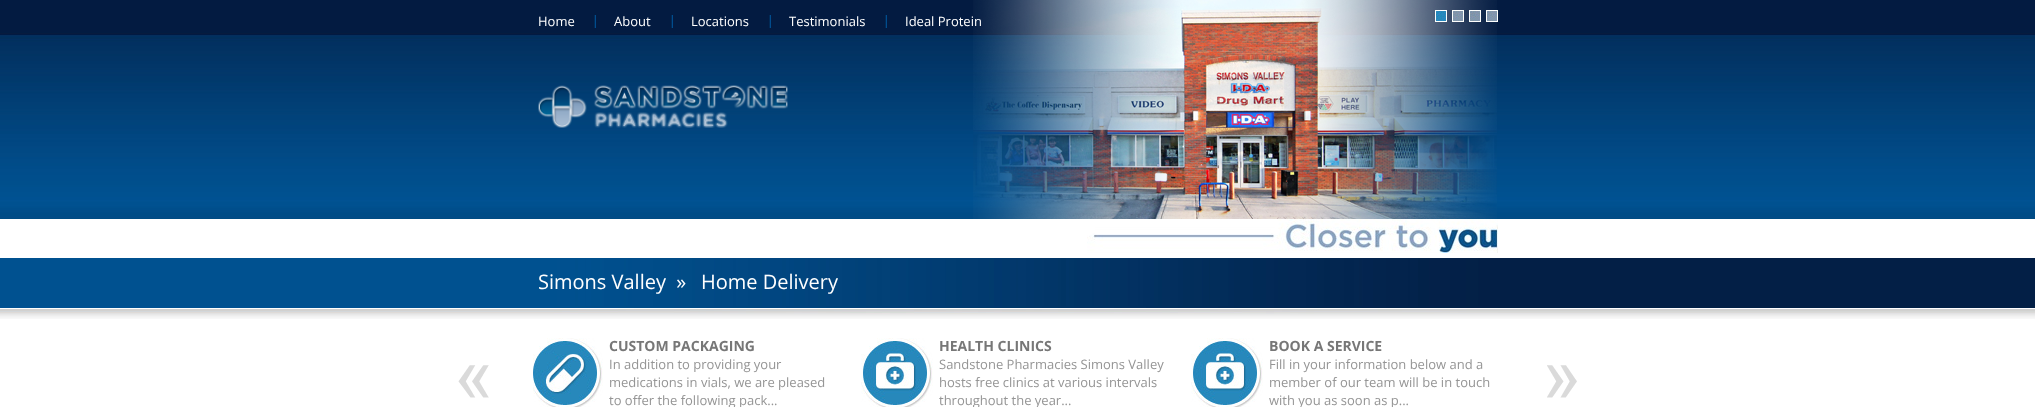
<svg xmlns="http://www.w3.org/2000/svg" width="2035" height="407">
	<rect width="100%" height="100%" fill="#FFFFFF" />
	<image x="0" y="0" width="2035" height="219" href="assets/img1.png" />
	<image x="538" y="85" width="250" height="43" href="assets/img2.png" />
	<image x="973" y="0" width="524" height="219" href="assets/img3.png" />
	<image x="1435" y="10" width="12" height="12" href="assets/img4.png" />
	<image x="1452" y="10" width="12" height="12" href="assets/img5.png" />
	<image x="1469" y="10" width="12" height="12" href="assets/img5.png" />
	<image x="1486" y="10" width="12" height="12" href="assets/img5.png" />
	<text x="538" y="26" font-family="Open Sans" font-size="13" fill="#FFFFFF">Home</text>
	<image x="594" y="15" width="2" height="13" href="assets/img6.png" />
	<text x="614" y="26" font-family="Open Sans" font-size="13" fill="#FFFFFF">About</text>
	<image x="671" y="15" width="2" height="13" href="assets/img6.png" />
	<text x="691" y="26" font-family="Open Sans" font-size="13" fill="#FFFFFF">Locations</text>
	<image x="769" y="15" width="2" height="13" href="assets/img6.png" />
	<text x="789" y="26" font-family="Open Sans" font-size="13" fill="#FFFFFF">Testimonials</text>
	<image x="885" y="15" width="2" height="13" href="assets/img6.png" />
	<text x="905" y="26" font-family="Open Sans" font-size="13" fill="#FFFFFF">Ideal Protein</text>
	<image x="1087" y="219" width="411" height="34" href="assets/img7.png" />
	<image x="0" y="258" width="538" height="61" href="assets/img8.png" />
	<image x="538" y="258" width="960" height="61" href="assets/img9.png" />
	<g font-family="Open Sans" font-size="20" fill="#FFFFFF">
		<text x="538" y="289" xml:space="preserve">Simons Valley  »</text>
		<text x="701" y="289">Home Delivery</text>
	</g>
	<image x="1498" y="258" width="537" height="61" href="assets/img10.png" />
	<image x="458" y="365" width="31" height="33" href="assets/img11.png" />
	<image x="533" y="338" width="70" height="69" href="assets/img12.png" />
	<text x="609" y="351" font-family="Open Sans" font-size="14" font-weight="700" fill="#777777">CUSTOM PACKAGING</text>
	<g font-family="Open Sans" font-size="13" fill="#959595">
		<text x="609" y="369">In addition to providing your</text>
		<text x="609" y="387">medications in vials, we are pleased</text>
		<text x="609" y="405">to offer the following pack...</text>
	</g>
	<image x="861" y="338" width="72" height="69" href="assets/img13.png" />
	<text x="939" y="351" font-family="Open Sans" font-size="14" font-weight="700" fill="#777777">HEALTH CLINICS</text>
	<g font-family="Open Sans" font-size="13" fill="#959595">
		<text x="939" y="369">Sandstone Pharmacies Simons Valley</text>
		<text x="939" y="387">hosts free clinics at various intervals</text>
		<text x="939" y="405">throughout the year...</text>
	</g>
	<image x="1191" y="338" width="72" height="69" href="assets/img13.png" />
	<text x="1269" y="351" font-family="Open Sans" font-size="14" font-weight="700" fill="#777777">BOOK A SERVICE</text>
	<g font-family="Open Sans" font-size="13" fill="#959595">
		<text x="1269" y="369">Fill in your information below and a</text>
		<text x="1269" y="387">member of our team will be in touch</text>
		<text x="1269" y="405">with you as soon as p...</text>
	</g>
	<image x="1547" y="365" width="30" height="33" href="assets/img14.png" />
</svg>
